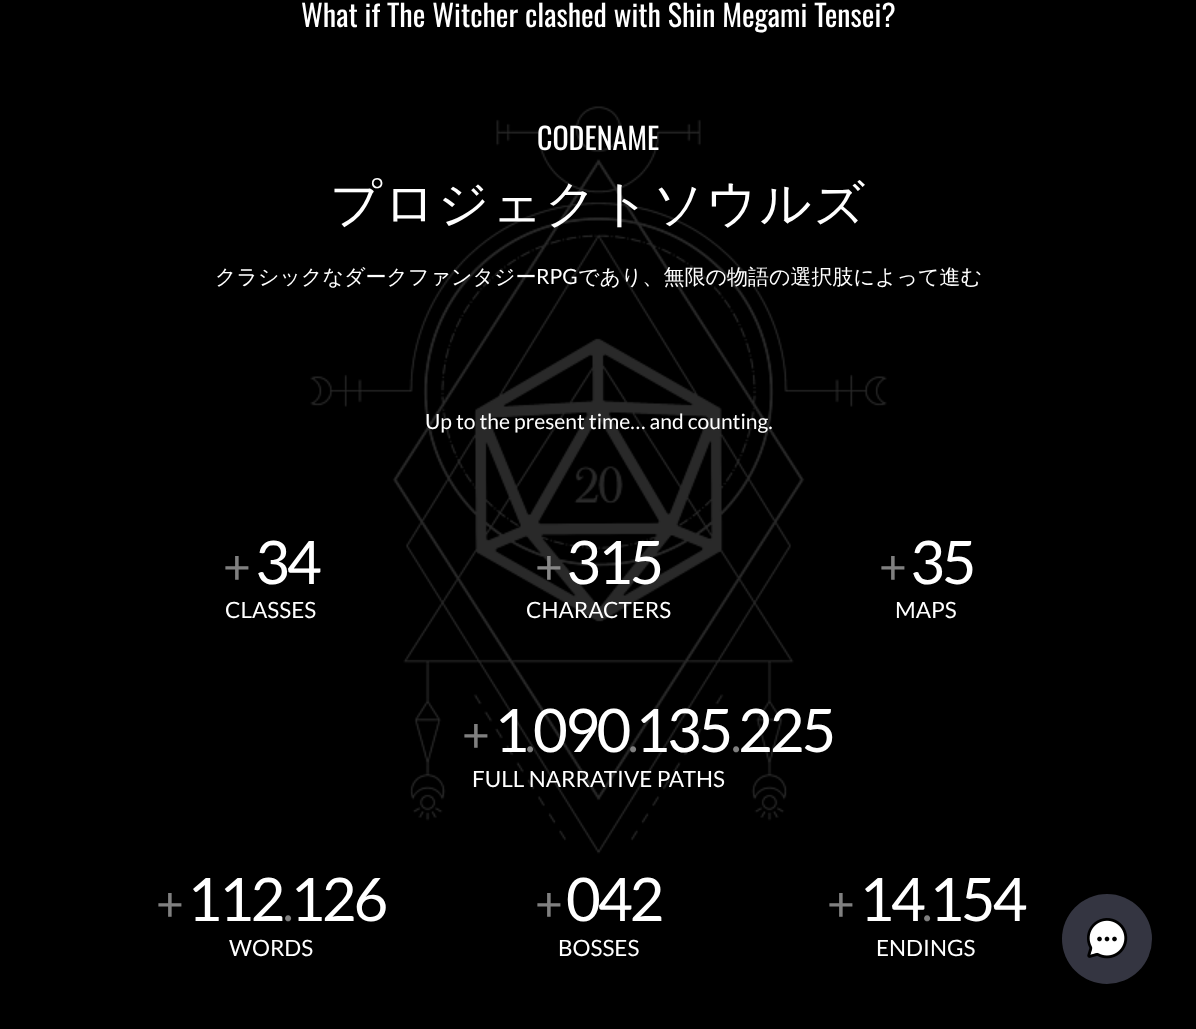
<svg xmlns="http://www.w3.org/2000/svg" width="1196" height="1029">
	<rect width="100%" height="100%" fill="#000000" />
	<image x="310" y="106" width="577" height="748" href="assets/img1.png" />
	<g font-family="Oswald" font-size="30" fill="#FFFFFF">
		<text x="301" y="27">What if The Witcher clashed with Shin Megami Tensei?</text>
		<text x="537" y="150">CODENAME</text>
	</g>
	<text x="330" y="221" font-family="WenQuanYi Zen Hei" font-size="51" font-weight="500" letter-spacing="1.5" fill="#FFFFFF">プロジェクトソウルズ</text>
	<text x="215" y="284" font-family="WenQuanYi Zen Hei" font-size="21" font-weight="500" fill="#FFFFFF">クラシックなダークファンタジー</text>
	<text x="536" y="284" font-family="Lato" font-size="21" fill="#FFFFFF">RPG</text>
	<text x="578" y="284" font-family="WenQuanYi Zen Hei" font-size="21" font-weight="500" fill="#FFFFFF">であり、無限の物語の選択肢によって進む</text>
	<text x="425" y="429" font-family="Lato" font-size="21" fill="#FFFFFF">Up to the present time… and counting.</text>
	<text x="223" y="584" font-family="Lato" font-size="48" letter-spacing="-3" fill="#808080">+</text>
	<text x="255" y="584" font-family="Lato" font-size="60" letter-spacing="-3" fill="#FFFFFF">34</text>
	<text x="225" y="618" font-family="Lato" font-size="22.5" fill="#FFFFFF">CLASSES</text>
	<text x="535" y="584" font-family="Lato" font-size="48" letter-spacing="-3" fill="#878787">+</text>
	<text x="566" y="584" font-family="Lato" font-size="60" letter-spacing="-3" fill="#FFFFFF">315</text>
	<text x="526" y="618" font-family="Lato" font-size="22.5" fill="#FFFFFF">CHARACTERS</text>
	<text x="879" y="584" font-family="Lato" font-size="48" letter-spacing="-3" fill="#808080">+</text>
	<text x="910" y="584" font-family="Lato" font-size="60" letter-spacing="-3" fill="#FFFFFF">35</text>
	<text x="895" y="618" font-family="Lato" font-size="22.5" fill="#FFFFFF">MAPS</text>
	<text x="462" y="752" font-family="Lato" font-size="48" letter-spacing="-3" fill="#808080">+</text>
	<g font-family="Lato" font-size="60" letter-spacing="-3" fill="#FFFFFF">
		<text x="494" y="752">1</text>
		<text x="533" y="752">090</text>
		<text x="635" y="752">135</text>
		<text x="738" y="752">225</text>
	</g>
	<g font-family="Lato" font-size="48" letter-spacing="-3" fill="#808080">
		<text x="525" y="752">.</text>
		<text x="628" y="752">.</text>
		<text x="731" y="752">.</text>
	</g>
	<text x="472" y="787" font-family="Lato" font-size="22.5" fill="#FFFFFF">FULL NARRATIVE PATHS</text>
	<text x="156" y="921" font-family="Lato" font-size="48" letter-spacing="-3" fill="#808080">+</text>
	<g font-family="Lato" font-size="60" letter-spacing="-3" fill="#FFFFFF">
		<text x="187" y="921">112</text>
		<text x="290" y="921">126</text>
	</g>
	<text x="283" y="921" font-family="Lato" font-size="48" letter-spacing="-3" fill="#808080">.</text>
	<text x="229" y="956" font-family="Lato" font-size="22.5" fill="#FFFFFF">WORDS</text>
	<text x="535" y="921" font-family="Lato" font-size="48" letter-spacing="-3" fill="#808080">+</text>
	<text x="566" y="921" font-family="Lato" font-size="60" letter-spacing="-3" fill="#FFFFFF">042</text>
	<text x="558" y="956" font-family="Lato" font-size="22.5" fill="#FFFFFF">BOSSES</text>
	<text x="827" y="921" font-family="Lato" font-size="48" letter-spacing="-3" fill="#808080">+</text>
	<g font-family="Lato" font-size="60" letter-spacing="-3" fill="#FFFFFF">
		<text x="859" y="921">14</text>
		<text x="929" y="921">154</text>
	</g>
	<text x="922" y="921" font-family="Lato" font-size="48" letter-spacing="-3" fill="#808080">.</text>
	<text x="876" y="956" font-family="Lato" font-size="22.5" fill="#FFFFFF">ENDINGS</text>
	<circle cx="1107" cy="939" r="45" fill="#343541" />
	<image x="1087" y="918" width="41" height="41" href="assets/img2.png" />
</svg>
